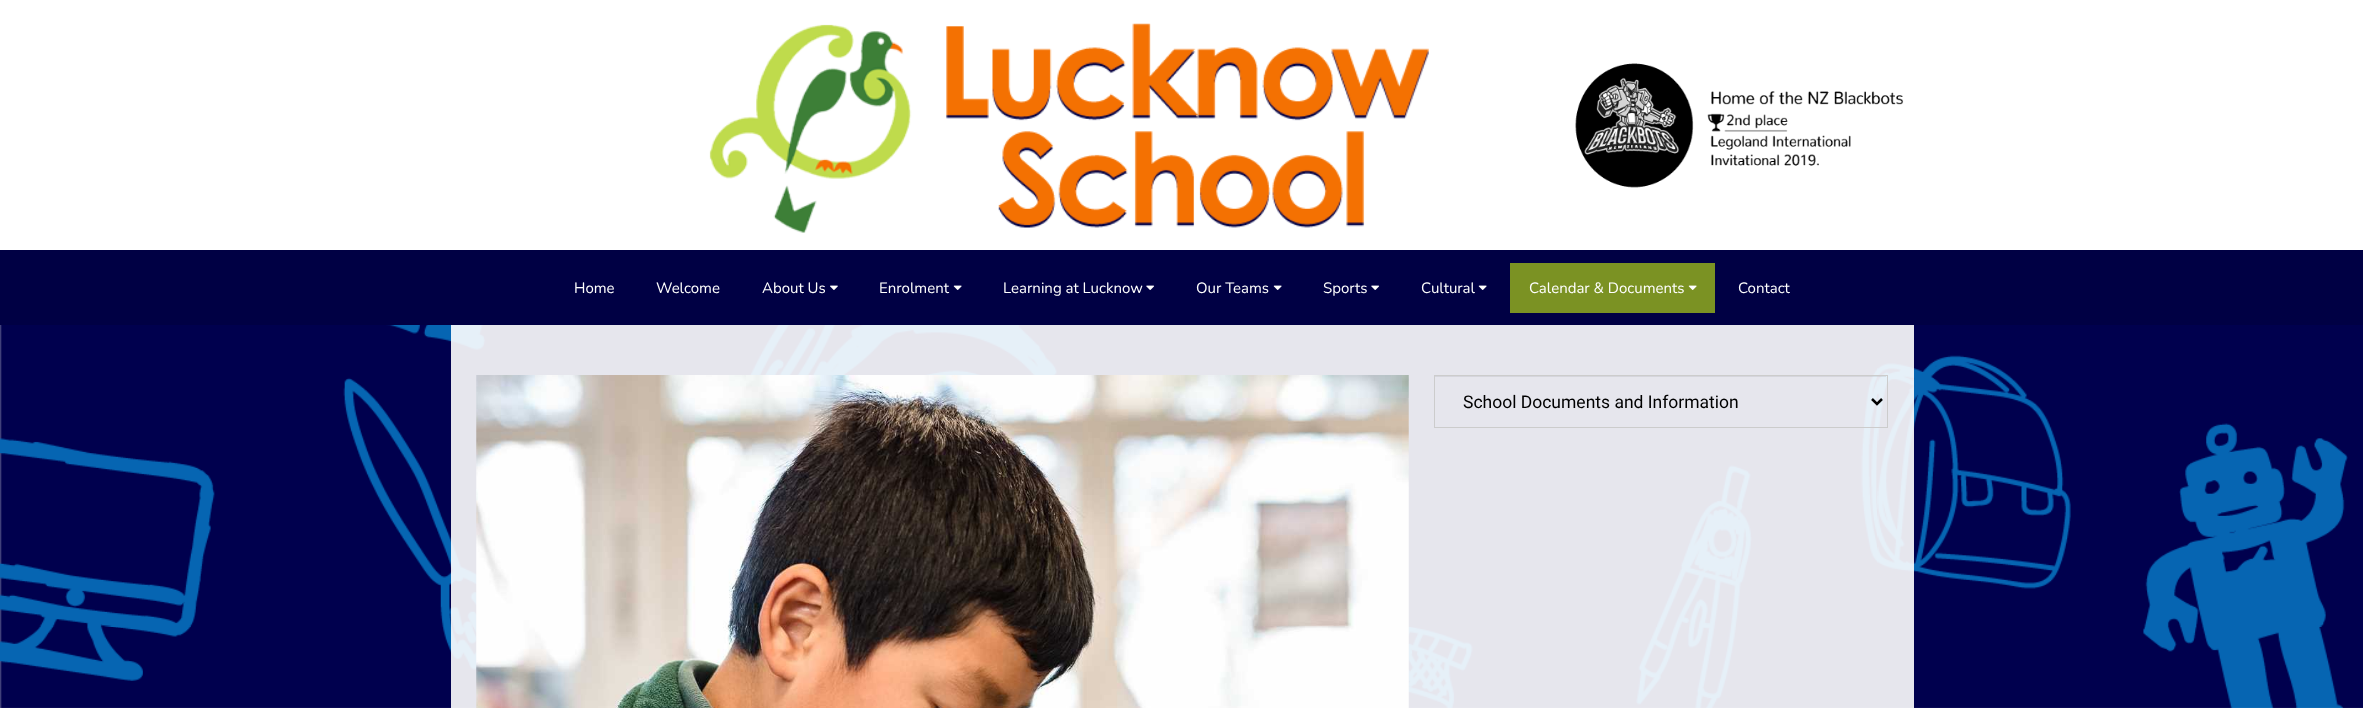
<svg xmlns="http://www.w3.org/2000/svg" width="2363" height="708">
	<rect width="100%" height="100%" fill="#FFFFFF" />
	<image x="709" y="23" width="720" height="210" href="assets/img1.png" />
	<image x="1575" y="63" width="329" height="125" href="assets/img2.png" />
	<rect x="0" y="250" width="2363" height="75" fill="#000044" />
	<g font-family="Nunito" font-size="15" fill="#FFFFFF">
		<text x="574" y="293">Home</text>
		<text x="656" y="293">Welcome</text>
		<text x="762" y="293">About Us</text>
	</g>
	<image x="830" y="285" width="8" height="5" href="assets/img3.png" />
	<text x="879" y="293" font-family="Nunito" font-size="15" fill="#FFFFFF">Enrolment</text>
	<image x="953" y="285" width="9" height="5" href="assets/img4.png" />
	<text x="1003" y="293" font-family="Nunito" font-size="15" fill="#FFFFFF">Learning at Lucknow</text>
	<image x="1146" y="285" width="9" height="5" href="assets/img5.png" />
	<text x="1196" y="293" font-family="Nunito" font-size="15" fill="#FFFFFF">Our Teams</text>
	<image x="1273" y="285" width="9" height="5" href="assets/img4.png" />
	<text x="1323" y="293" font-family="Nunito" font-size="15" fill="#FFFFFF">Sports</text>
	<image x="1371" y="285" width="9" height="5" href="assets/img5.png" />
	<text x="1421" y="293" font-family="Nunito" font-size="15" fill="#FFFFFF">Cultural</text>
	<image x="1478" y="285" width="9" height="5" href="assets/img4.png" />
	<rect x="1510" y="263" width="205" height="50" fill="#7B9223" />
	<text x="1529" y="293" font-family="Nunito" font-size="15" fill="#FFFFFF">Calendar &amp; Documents</text>
	<image x="1688" y="285" width="9" height="5" href="assets/img6.png" />
	<text x="1738" y="293" font-family="Nunito" font-size="15" fill="#FFFFFF">Contact</text>
	<image x="0" y="325" width="2363" height="383" href="assets/img8.png" />
	<rect x="451" y="325" width="1463" height="383" fill="#FFFFFF" fill-opacity="0.9" />
	<image x="476" y="375" width="933" height="333" href="assets/img7.png" />
	<rect x="1435" y="376" width="451" height="1" fill="#000000" fill-opacity="0.07" />
	<rect x="1434.5" y="375.5" width="453" height="52" fill="none" stroke="#CCCCCC" />
	<path d="M1872 399L1877 404L1882 399" fill="none" stroke="#000000" stroke-width="2.5" />
	<text x="1463" y="408" font-family="Roboto" font-size="17.5" fill="#000000">School Documents and Information</text>
</svg>
